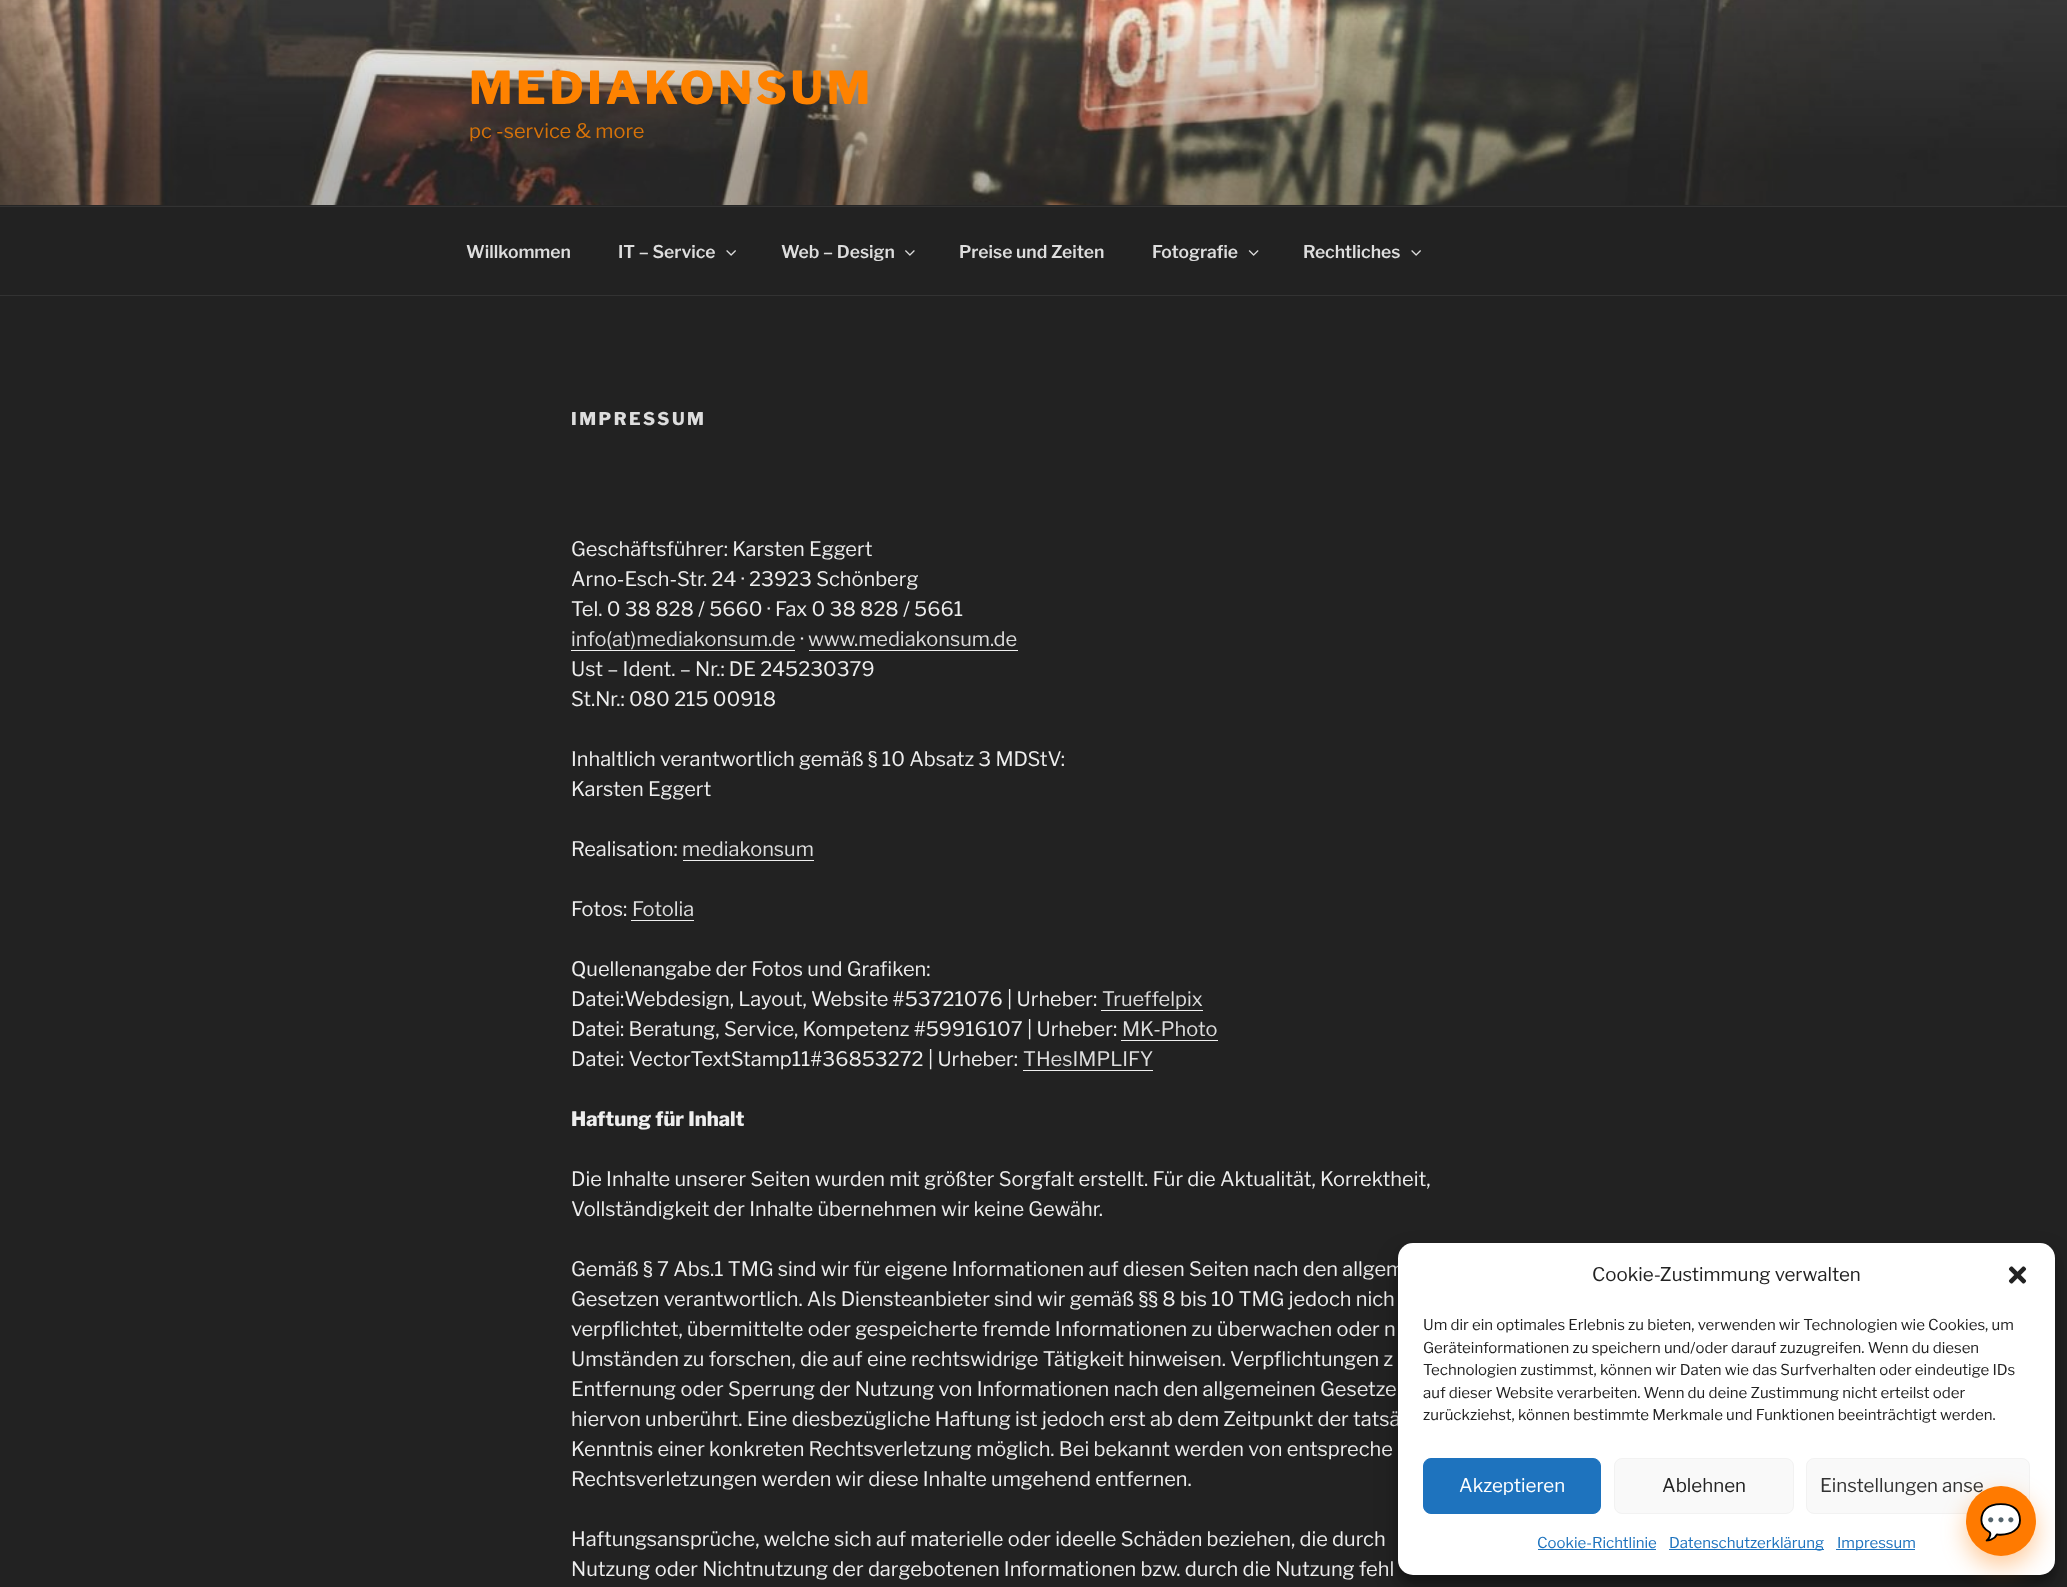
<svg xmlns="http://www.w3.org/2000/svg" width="2067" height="1587">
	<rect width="100%" height="100%" fill="#222222" />
	<rect x="0" y="205" width="2067" height="1" fill="#262626" />
	<image x="0" y="0" width="2067" height="205" href="assets/img1.png" />
	<text x="469" y="104" font-family="Libre Franklin" font-size="45" font-weight="100" letter-spacing="3.6" fill="#FE8200">MEDIAKONSUM</text>
	<text x="469" y="138" font-family="'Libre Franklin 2'" font-size="20" font-weight="100" fill="#D67209">pc -service &amp; more</text>
	<rect x="0" y="206" width="2067" height="1" fill="#333333" />
	<rect x="0" y="295" width="2067" height="1" fill="#333333" />
	<g font-family="'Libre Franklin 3'" font-size="17.5" font-weight="100" fill="#DDDDDD">
		<text x="466" y="258">Willkommen</text>
		<text x="618" y="258">IT – Service</text>
	</g>
	<image x="726" y="250" width="10" height="6" href="assets/img2.png" />
	<text x="781" y="258" font-family="'Libre Franklin 3'" font-size="17.5" font-weight="100" fill="#DDDDDD">Web – Design</text>
	<image x="905" y="250" width="10" height="6" href="assets/img3.png" />
	<g font-family="'Libre Franklin 3'" font-size="17.5" font-weight="100" fill="#DDDDDD">
		<text x="959" y="258">Preise und Zeiten</text>
		<text x="1152" y="258">Fotografie</text>
	</g>
	<image x="1248" y="250" width="11" height="6" href="assets/img4.png" />
	<text x="1303" y="258" font-family="'Libre Franklin 3'" font-size="17.5" font-weight="100" fill="#DDDDDD">Rechtliches</text>
	<image x="1411" y="250" width="10" height="6" href="assets/img2.png" />
	<text x="571" y="425" font-family="Libre Franklin" font-size="17.5" font-weight="100" letter-spacing="2.5" fill="#DDDDDD">IMPRESSUM</text>
	<g font-family="'Libre Franklin 2'" font-size="20" font-weight="100" fill="#EEEEEE">
		<text x="571" y="556">Geschäftsführer: Karsten Eggert</text>
		<text x="571" y="586">Arno-Esch-Str. 24 · 23923 Schönberg</text>
		<text x="571" y="616">Tel. 0 38 828 / 5660 · Fax 0 38 828 / 5661</text>
	</g>
	<text x="571" y="646" font-family="'Libre Franklin 2'" font-size="20" font-weight="100" fill="#DDDDDD">info(at)mediakonsum.de</text>
	<rect x="571" y="650" width="224" height="1" fill="#F0F0F0" />
	<text x="800" y="646" font-family="'Libre Franklin 2'" font-size="20" font-weight="100" fill="#EEEEEE">·</text>
	<text x="808" y="646" font-family="'Libre Franklin 2'" font-size="20" font-weight="100" fill="#DDDDDD">www.mediakonsum.de</text>
	<rect x="809" y="650" width="209" height="1" fill="#F0F0F0" />
	<g font-family="'Libre Franklin 2'" font-size="20" font-weight="100" fill="#EEEEEE">
		<text x="571" y="676">Ust – Ident. – Nr.: DE 245230379</text>
		<text x="571" y="706">St.Nr.: 080 215 00918</text>
		<text x="571" y="766">Inhaltlich verantwortlich gemäß § 10 Absatz 3 MDStV:</text>
		<text x="571" y="796">Karsten Eggert</text>
		<text x="571" y="856">Realisation:</text>
	</g>
	<text x="682" y="856" font-family="'Libre Franklin 2'" font-size="20" font-weight="100" fill="#DDDDDD">mediakonsum</text>
	<rect x="683" y="860" width="131" height="1" fill="#F0F0F0" />
	<text x="571" y="916" font-family="'Libre Franklin 2'" font-size="20" font-weight="100" fill="#EEEEEE">Fotos:</text>
	<text x="632" y="916" font-family="'Libre Franklin 2'" font-size="20" font-weight="100" fill="#DDDDDD">Fotolia</text>
	<rect x="631" y="920" width="63" height="1" fill="#F0F0F0" />
	<g font-family="'Libre Franklin 2'" font-size="20" font-weight="100" fill="#EEEEEE">
		<text x="571" y="976">Quellenangabe der Fotos und Grafiken:</text>
		<text x="571" y="1006">Datei:Webdesign, Layout, Website #53721076 | Urheber:</text>
	</g>
	<text x="1102" y="1006" font-family="'Libre Franklin 2'" font-size="20" font-weight="100" fill="#DDDDDD">Trueffelpix</text>
	<rect x="1101" y="1010" width="102" height="1" fill="#F0F0F0" />
	<text x="571" y="1036" font-family="'Libre Franklin 2'" font-size="20" font-weight="100" fill="#EEEEEE">Datei: Beratung, Service, Kompetenz #59916107 | Urheber:</text>
	<text x="1122" y="1036" font-family="'Libre Franklin 2'" font-size="20" font-weight="100" fill="#DDDDDD">MK-Photo</text>
	<rect x="1121" y="1040" width="97" height="1" fill="#F0F0F0" />
	<text x="571" y="1066" font-family="'Libre Franklin 2'" font-size="20" font-weight="100" fill="#EEEEEE">Datei: VectorTextStamp11#36853272 | Urheber:</text>
	<text x="1023" y="1066" font-family="'Libre Franklin 2'" font-size="20" font-weight="100" fill="#DDDDDD">THesIMPLIFY</text>
	<rect x="1023" y="1070" width="130" height="1" fill="#F0F0F0" />
	<text x="571" y="1126" font-family="Libre Franklin" font-size="20" font-weight="100" fill="#EEEEEE">Haftung für Inhalt</text>
	<g font-family="'Libre Franklin 2'" font-size="20" font-weight="100" fill="#EEEEEE">
		<text x="571" y="1186">Die Inhalte unserer Seiten wurden mit größter Sorgfalt erstellt. Für die Aktualität, Korrektheit,</text>
		<text x="571" y="1216">Vollständigkeit der Inhalte übernehmen wir keine Gewähr.</text>
		<text x="571" y="1276">Gemäß § 7 Abs.1 TMG sind wir für eigene Informationen auf diesen Seiten nach den allgem</text>
		<text x="571" y="1306">Gesetzen verantwortlich. Als Diensteanbieter sind wir gemäß §§ 8 bis 10 TMG jedoch nich</text>
		<text x="571" y="1336">verpflichtet, übermittelte oder gespeicherte fremde Informationen zu überwachen oder n</text>
		<text x="571" y="1366">Umständen zu forschen, die auf eine rechtswidrige Tätigkeit hinweisen. Verpflichtungen z</text>
		<text x="571" y="1396">Entfernung oder Sperrung der Nutzung von Informationen nach den allgemeinen Gesetze</text>
		<text x="571" y="1426">hiervon unberührt. Eine diesbezügliche Haftung ist jedoch erst ab dem Zeitpunkt der tatsä</text>
		<text x="571" y="1456">Kenntnis einer konkreten Rechtsverletzung möglich. Bei bekannt werden von entspreche</text>
		<text x="571" y="1486">Rechtsverletzungen werden wir diese Inhalte umgehend entfernen.</text>
		<text x="571" y="1546">Haftungsansprüche, welche sich auf materielle oder ideelle Schäden beziehen, die durch</text>
		<text x="571" y="1576">Nutzung oder Nichtnutzung der dargebotenen Informationen bzw. durch die Nutzung fehl</text>
	</g>
	<rect x="1398" y="1250" width="657" height="333" rx="15" fill="#000000" fill-opacity="0.23" filter="blur(4px)" />
	<rect x="1398" y="1255" width="657" height="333" rx="15" fill="#000000" fill-opacity="0.19" filter="blur(12.5px)" />
	<rect x="1398" y="1243" width="657" height="332" rx="15" fill="#FFFFFF" />
	<text x="1592" y="1281" font-family="'Libre Franklin 2'" font-size="18.75" font-weight="100" fill="#222222">Cookie-Zustimmung verwalten</text>
	<image x="2008" y="1266" width="19" height="18" href="assets/img5.png" />
	<g font-family="'Libre Franklin 2'" font-size="15" font-weight="100" fill="#222222">
		<text x="1423" y="1330">Um dir ein optimales Erlebnis zu bieten, verwenden wir Technologien wie Cookies, um</text>
		<text x="1423" y="1353">Geräteinformationen zu speichern und/oder darauf zuzugreifen. Wenn du diesen</text>
		<text x="1423" y="1375">Technologien zustimmst, können wir Daten wie das Surfverhalten oder eindeutige IDs</text>
		<text x="1423" y="1398">auf dieser Website verarbeiten. Wenn du deine Zustimmung nicht erteilst oder</text>
		<text x="1423" y="1420">zurückziehst, können bestimmte Merkmale und Funktionen beeinträchtigt werden.</text>
	</g>
	<rect x="1423.5" y="1458.5" width="177" height="55" rx="7.5" fill="#1E73BE" stroke="#1E73BE" />
	<text x="1459" y="1492" font-family="'Libre Franklin 2'" font-size="18.75" font-weight="100" fill="#FFFFFF">Akzeptieren</text>
	<rect x="1614.5" y="1458.5" width="179" height="55" rx="7.5" fill="#F9F9F9" stroke="#F2F2F2" />
	<text x="1662" y="1492" font-family="'Libre Franklin 2'" font-size="18.75" font-weight="100" fill="#222222">Ablehnen</text>
	<rect x="1806.5" y="1458.5" width="223" height="55" rx="7.5" fill="#F9F9F9" stroke="#F2F2F2" />
	<text x="1820" y="1492" font-family="'Libre Franklin 2'" font-size="18.75" font-weight="100" fill="#333333">Einstellungen anse</text>
	<text x="1537" y="1548" font-family="'Libre Franklin 2'" font-size="15" font-weight="100" fill="#1E73BE">Cookie-Richtlinie</text>
	<rect x="1538" y="1549" width="118" height="1" fill="#1E73BE" />
	<rect x="1669" y="1549" width="155" height="1" fill="#1E73BE" />
	<text x="1669" y="1548" font-family="'Libre Franklin 2'" font-size="15" font-weight="100" fill="#1E73BE">Datenschutzerklärung</text>
	<rect x="1836" y="1549" width="79" height="1" fill="#1E73BE" />
	<text x="1837" y="1548" font-family="'Libre Franklin 2'" font-size="15" font-weight="100" fill="#1E73BE">Impressum</text>
	<rect x="1966" y="1496" width="70" height="70" rx="35" fill="#FF7A00" fill-opacity="0.4" filter="blur(12.5px)" />
	<circle cx="2001" cy="1521" r="35" fill="#FF7A00" />
	<text x="1979" y="1534" font-family="Noto Color Emoji" font-size="35" fill="#FFFFFF">💬</text>
</svg>
